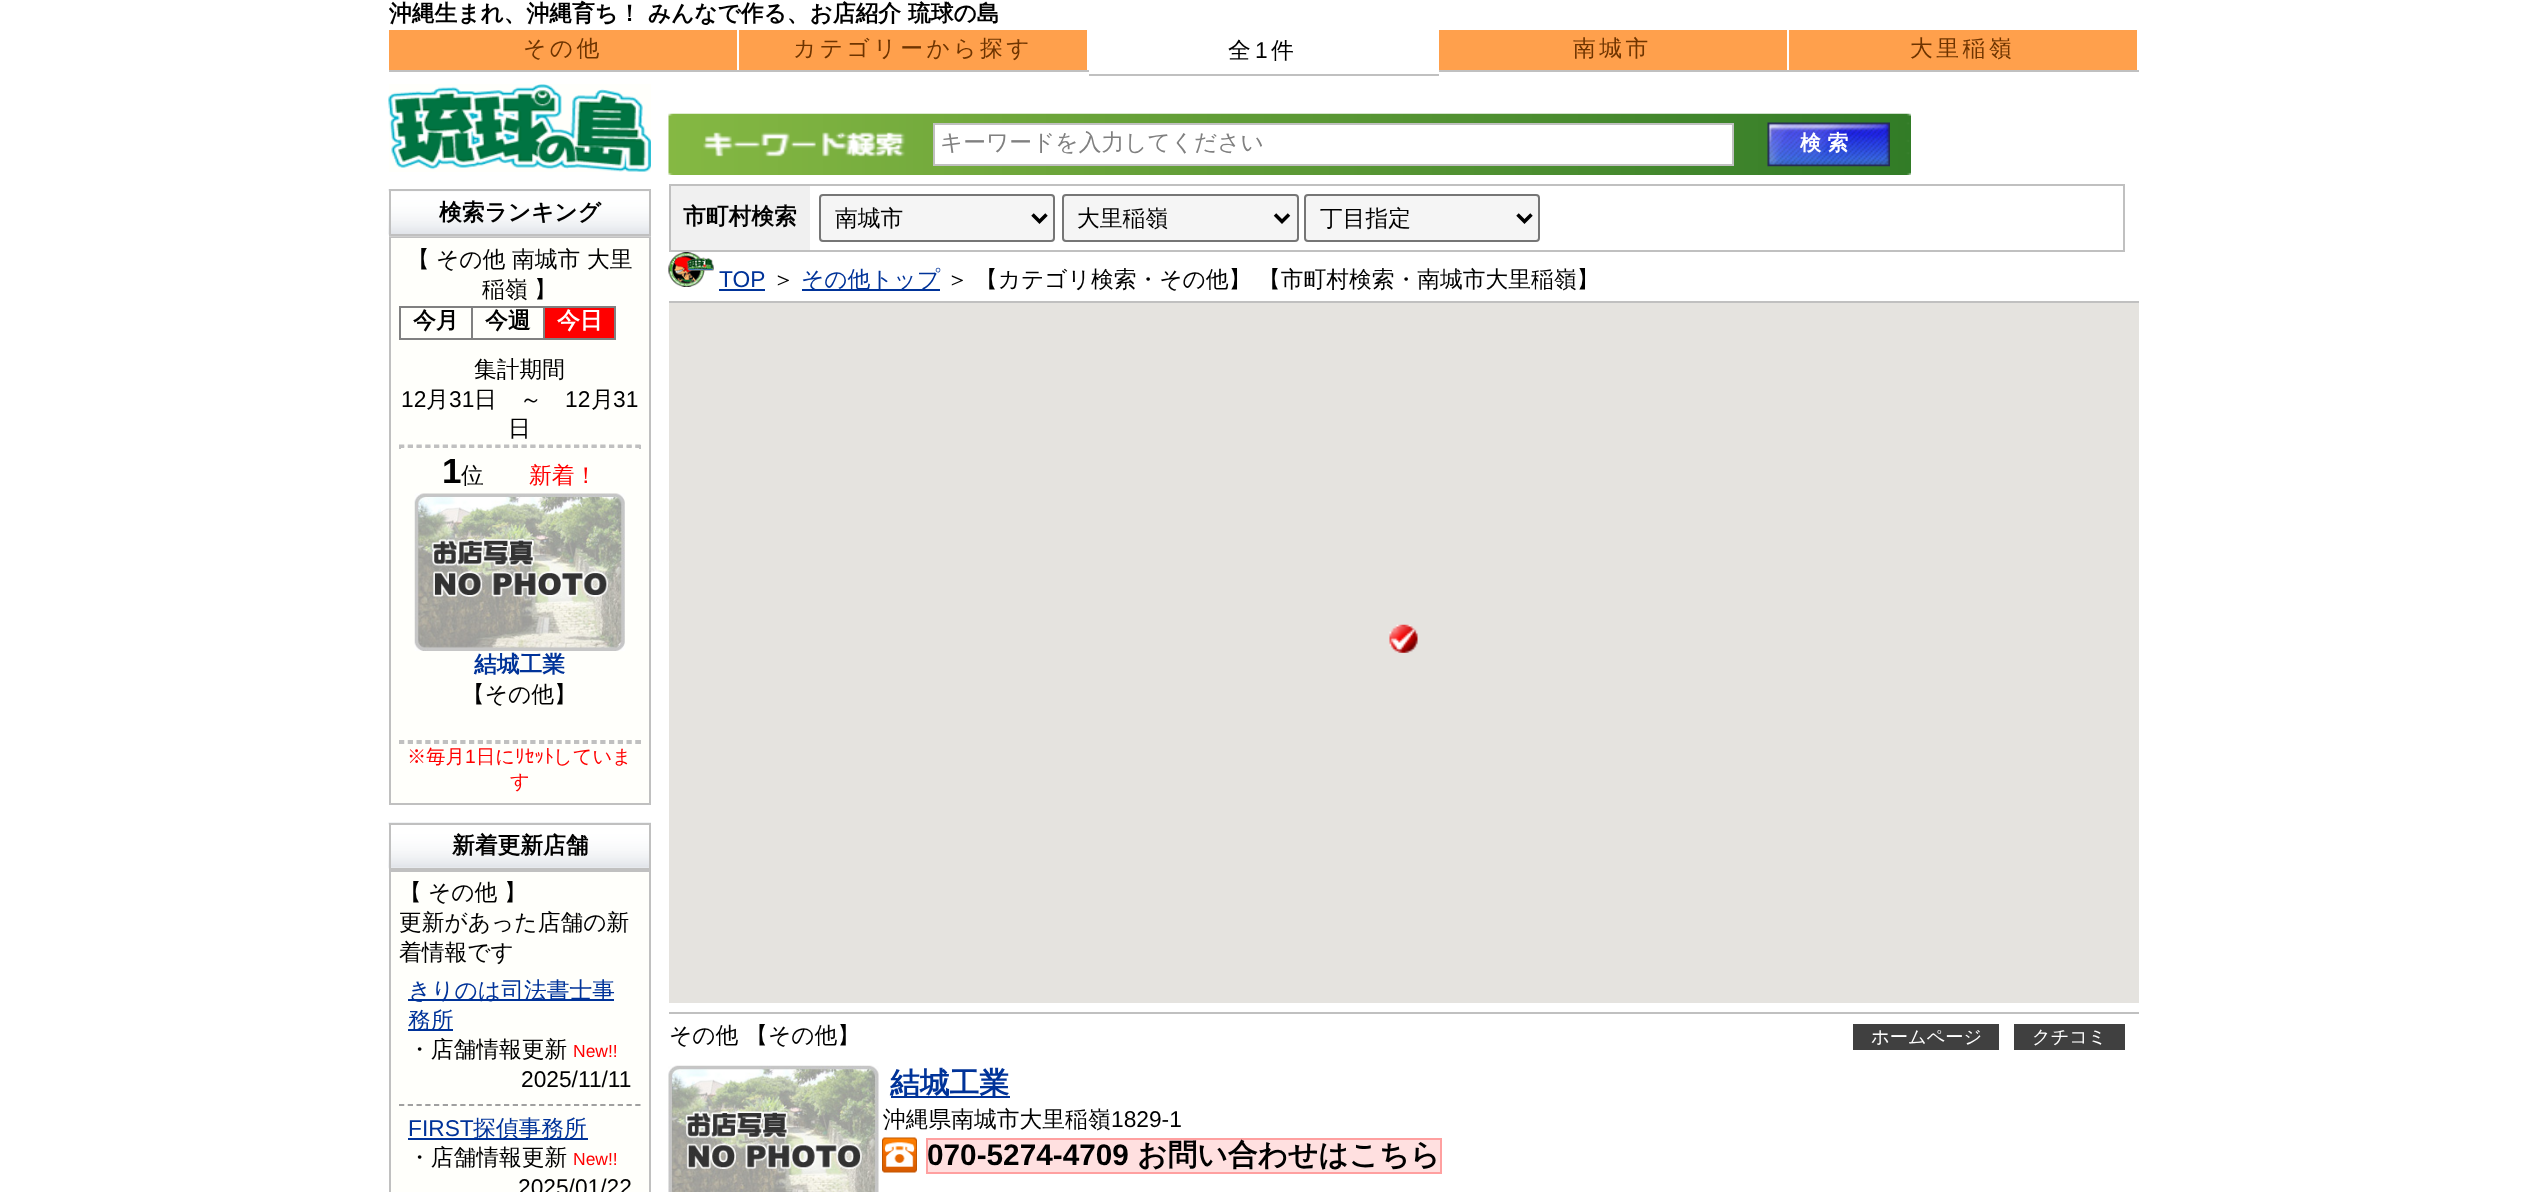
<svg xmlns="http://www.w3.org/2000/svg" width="2527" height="1192">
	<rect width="100%" height="100%" fill="#FFFFFF" />
	<text x="389" y="21" font-family="WenQuanYi Zen Hei" font-size="22.75" font-weight="700" fill="#000000">沖縄生まれ、沖縄育ち！ みんなで作る、お店紹介 琉球の島</text>
	<rect x="389" y="30" width="348" height="40" fill="#FFA04C" />
	<rect x="389" y="70" width="700" height="2" fill="#C0C0C0" />
	<text x="523" y="56" font-family="WenQuanYi Zen Hei" font-size="22.75" font-weight="500" letter-spacing="3.5" fill="#6E3400">その他</text>
	<rect x="739" y="30" width="348" height="40" fill="#FFA04C" />
	<text x="793" y="56" font-family="WenQuanYi Zen Hei" font-size="22.75" font-weight="500" letter-spacing="3.5" fill="#6E3400">カテゴリーから探す</text>
	<rect x="1089" y="74" width="350" height="2" fill="#C0C0C0" />
	<text x="1228" y="58" font-family="WenQuanYi Zen Hei" font-size="22.75" font-weight="500" letter-spacing="3.5" fill="#000000">全</text>
	<text x="1255" y="58" font-family="Liberation Sans" font-size="22.75" letter-spacing="3.5" fill="#000000">1</text>
	<text x="1271" y="58" font-family="WenQuanYi Zen Hei" font-size="22.75" font-weight="500" letter-spacing="3.5" fill="#000000">件</text>
	<rect x="1439" y="30" width="348" height="40" fill="#FFA04C" />
	<rect x="1439" y="70" width="700" height="2" fill="#C0C0C0" />
	<text x="1573" y="56" font-family="WenQuanYi Zen Hei" font-size="22.75" font-weight="500" letter-spacing="3.5" fill="#6E3400">南城市</text>
	<rect x="1789" y="30" width="348" height="40" fill="#FFA04C" />
	<text x="1910" y="56" font-family="WenQuanYi Zen Hei" font-size="22.75" font-weight="500" letter-spacing="3.5" fill="#6E3400">大里稲嶺</text>
	<rect x="389" y="84" width="262" height="88" fill="#FFFFFB" />
	<image x="388" y="84" width="263" height="88" href="assets/img1.png" />
	<rect x="389" y="236" width="262" height="2" fill="#C0C0C0" />
	<image x="388" y="189" width="263" height="48" href="assets/img2.png" />
	<rect x="390" y="190" width="260" height="45" fill="none" stroke="#C0C0C0" stroke-width="2" />
	<text x="439" y="220" font-family="WenQuanYi Zen Hei" font-size="22.75" font-weight="700" fill="#000000">検索ランキング</text>
	<rect x="391" y="238" width="258" height="565" fill="#FFFFFB" />
	<rect x="389" y="803" width="262" height="2" fill="#C0C0C0" />
	<rect x="649" y="238" width="2" height="565" fill="#C0C0C0" />
	<rect x="389" y="238" width="2" height="565" fill="#C0C0C0" />
	<g font-family="WenQuanYi Zen Hei" font-size="22.75" font-weight="500" fill="#000000">
		<text x="407" y="267">【</text>
		<text x="436" y="267">その他</text>
		<text x="512" y="267">南城市</text>
		<text x="587" y="267">大里</text>
		<text x="482" y="297">稲嶺</text>
		<text x="534" y="297">】</text>
	</g>
	<rect x="399" y="306" width="217" height="2" fill="#808080" />
	<rect x="614" y="306" width="2" height="34" fill="#808080" />
	<rect x="399" y="338" width="217" height="2" fill="#808080" />
	<rect x="399" y="306" width="2" height="34" fill="#808080" />
	<text x="413" y="328" font-family="WenQuanYi Zen Hei" font-size="22.75" font-weight="700" fill="#000000">今月</text>
	<rect x="471" y="306" width="2" height="34" fill="#808080" />
	<text x="485" y="328" font-family="WenQuanYi Zen Hei" font-size="22.75" font-weight="700" fill="#000000">今週</text>
	<rect x="545" y="308" width="69" height="30" fill="#FF0000" />
	<rect x="543" y="306" width="2" height="34" fill="#808080" />
	<text x="557" y="328" font-family="WenQuanYi Zen Hei" font-size="22.75" font-weight="700" fill="#FFFFFF">今日</text>
	<text x="474" y="377" font-family="WenQuanYi Zen Hei" font-size="22.75" font-weight="500" fill="#000000">集計期間</text>
	<text x="401" y="407" font-family="Liberation Sans" font-size="22.75" fill="#000000">12</text>
	<text x="426" y="407" font-family="WenQuanYi Zen Hei" font-size="22.75" font-weight="500" fill="#000000">月</text>
	<text x="449" y="407" font-family="Liberation Sans" font-size="22.75" fill="#000000">31</text>
	<text x="474" y="407" font-family="WenQuanYi Zen Hei" font-size="22.75" font-weight="500" fill="#000000">日　～</text>
	<text x="565" y="407" font-family="Liberation Sans" font-size="22.75" fill="#000000">12</text>
	<text x="591" y="407" font-family="WenQuanYi Zen Hei" font-size="22.75" font-weight="500" fill="#000000">月</text>
	<text x="613" y="407" font-family="Liberation Sans" font-size="22.75" fill="#000000">31</text>
	<text x="508" y="436" font-family="WenQuanYi Zen Hei" font-size="22.75" font-weight="500" fill="#000000">日</text>
	<path d="M399 445.5H640.5" fill="none" stroke="#C0C0C0" stroke-width="1.8" stroke-dasharray="5.25 3.5" />
	<rect x="639" y="445" width="2" height="4" fill="#C0C0C0" />
	<path d="M399 447H640.5" fill="none" stroke="#C0C0C0" stroke-width="1.8" stroke-dasharray="5.25 3.5" />
	<rect x="399" y="445" width="2" height="4" fill="#C0C0C0" />
	<text x="442" y="483" font-family="Liberation Sans" font-size="35" font-weight="700" fill="#000000">1</text>
	<text x="461" y="483" font-family="WenQuanYi Zen Hei" font-size="22.75" font-weight="500" fill="#000000">位</text>
	<text x="529" y="483" font-family="WenQuanYi Zen Hei" font-size="22.75" font-weight="500" fill="#FF0000">新着！</text>
	<image x="414" y="493" width="211" height="158" href="assets/img3.png" />
	<text x="474" y="672" font-family="WenQuanYi Zen Hei" font-size="22.75" font-weight="700" fill="#003399">結城工業</text>
	<text x="462" y="702" font-family="WenQuanYi Zen Hei" font-size="22.75" font-weight="500" fill="#000000">【その他】</text>
	<path d="M399 741H640.5" fill="none" stroke="#C0C0C0" stroke-width="1.8" stroke-dasharray="5.25 3.5" />
	<rect x="639" y="740" width="2" height="4" fill="#C0C0C0" />
	<path d="M399 743H640.5" fill="none" stroke="#C0C0C0" stroke-width="1.8" stroke-dasharray="5.25 3.5" />
	<rect x="399" y="740" width="2" height="4" fill="#C0C0C0" />
	<text x="407" y="763" font-family="WenQuanYi Zen Hei" font-size="19.25" font-weight="500" fill="#FF0000">※毎月</text>
	<text x="465" y="763" font-family="Liberation Sans" font-size="19.25" fill="#FF0000">1</text>
	<text x="476" y="763" font-family="WenQuanYi Zen Hei" font-size="19.25" font-weight="500" fill="#FF0000">日に</text>
	<text x="515" y="763" font-family="IPAPGothic" font-size="19.25" fill="#FF0000">ﾘｾｯﾄ</text>
	<g font-family="WenQuanYi Zen Hei" font-size="19.25" font-weight="500" fill="#FF0000">
		<text x="553" y="763">していま</text>
		<text x="510" y="788">す</text>
	</g>
	<rect x="389" y="870" width="262" height="2" fill="#C0C0C0" />
	<image x="388" y="822" width="263" height="47" href="assets/img4.png" />
	<rect x="390" y="824" width="260" height="45" fill="none" stroke="#C0C0C0" stroke-width="2" />
	<text x="452" y="853" font-family="WenQuanYi Zen Hei" font-size="22.75" font-weight="700" fill="#000000">新着更新店舗</text>
	<rect x="391" y="872" width="258" height="320" fill="#FFFFFB" />
	<rect x="649" y="872" width="2" height="320" fill="#C0C0C0" />
	<rect x="389" y="872" width="2" height="320" fill="#C0C0C0" />
	<g font-family="WenQuanYi Zen Hei" font-size="22.75" font-weight="500" fill="#000000">
		<text x="399" y="900">【</text>
		<text x="428" y="900">その他</text>
		<text x="504" y="900">】</text>
		<text x="399" y="930">更新があった店舗の新</text>
		<text x="399" y="960">着情報です</text>
	</g>
	<path d="M399 1105H640.5" fill="none" stroke="#A0A0A0" stroke-width="1.8" stroke-dasharray="5.25 3.5" />
	<rect x="408" y="999" width="206" height="2" fill="#003399" />
	<text x="408" y="998" font-family="WenQuanYi Zen Hei" font-size="22.75" font-weight="500" fill="#003399">きりのは司法書士事</text>
	<rect x="408" y="1029" width="45" height="2" fill="#003399" />
	<text x="408" y="1028" font-family="WenQuanYi Zen Hei" font-size="22.75" font-weight="500" fill="#003399">務所</text>
	<text x="408" y="1057" font-family="WenQuanYi Zen Hei" font-size="22.75" font-weight="500" fill="#000000">・店舗情報更新</text>
	<text x="573" y="1057" font-family="Liberation Sans" font-size="17.5" fill="#FF0000">New!!</text>
	<text x="521" y="1087" font-family="Liberation Sans" font-size="22.75" fill="#000000">2025/11/11</text>
	<text x="408" y="1136" font-family="Liberation Sans" font-size="22.75" fill="#003399">FIRST</text>
	<rect x="408" y="1138" width="180" height="2" fill="#003399" />
	<text x="473" y="1136" font-family="WenQuanYi Zen Hei" font-size="22.75" font-weight="500" fill="#003399">探偵事務所</text>
	<text x="408" y="1165" font-family="WenQuanYi Zen Hei" font-size="22.75" font-weight="500" fill="#000000">・店舗情報更新</text>
	<text x="573" y="1165" font-family="Liberation Sans" font-size="17.5" fill="#FF0000">New!!</text>
	<text x="518" y="1195" font-family="Liberation Sans" font-size="22.75" fill="#000000">2025/01/22</text>
	<image x="668" y="113" width="1243" height="62" href="assets/img5.png" />
	<rect x="934" y="124" width="799" height="41" fill="#FFFFFF" stroke="#C0C0C0" stroke-width="2" />
	<text x="940" y="150" font-family="WenQuanYi Zen Hei" font-size="22.75" font-weight="500" fill="#808080">キーワードを入力してください</text>
	<image x="1767" y="122" width="123" height="45" href="assets/img6.png" />
	<text x="1800" y="150" font-family="WenQuanYi Zen Hei" font-size="21" font-weight="700" fill="#FFFFFF">検 索</text>
	<rect x="669" y="184" width="1456" height="2" fill="#C0C0C0" />
	<rect x="2123" y="184" width="2" height="68" fill="#C0C0C0" />
	<rect x="669" y="250" width="1456" height="2" fill="#C0C0C0" />
	<rect x="669" y="184" width="2" height="68" fill="#C0C0C0" />
	<rect x="671" y="186" width="139" height="64" fill="#F0F0F0" />
	<text x="683" y="224" font-family="WenQuanYi Zen Hei" font-size="22.75" font-weight="700" fill="#000000">市町村検索</text>
	<rect x="820" y="195" width="234" height="46" rx="3" fill="#F5F5F5" stroke="#767676" stroke-width="2" />
	<path d="M1032.5 214.5L1039.5 221.5L1046.5 214.5" fill="none" stroke="#000000" stroke-width="3.5" />
	<text x="835" y="226" font-family="WenQuanYi Zen Hei" font-size="22.75" font-weight="500" fill="#000000">南城市</text>
	<rect x="1063" y="195" width="235" height="46" rx="3" fill="#F5F5F5" stroke="#767676" stroke-width="2" />
	<path d="M1275 214.5L1282 221.5L1289 214.5" fill="none" stroke="#000000" stroke-width="3.5" />
	<text x="1077" y="226" font-family="WenQuanYi Zen Hei" font-size="22.75" font-weight="500" fill="#000000">大里稲嶺</text>
	<rect x="1305" y="195" width="234" height="46" rx="3" fill="#F5F5F5" stroke="#767676" stroke-width="2" />
	<path d="M1517.5 214.5L1524.5 221.5L1531.5 214.5" fill="none" stroke="#000000" stroke-width="3.5" />
	<text x="1320" y="226" font-family="WenQuanYi Zen Hei" font-size="22.75" font-weight="500" fill="#000000">丁目指定</text>
	<rect x="669" y="301" width="1470" height="2" fill="#C0C0C0" />
	<image x="668" y="252" width="46" height="35" href="assets/img7.png" />
	<text x="719" y="287" font-family="Liberation Sans" font-size="22.75" fill="#003399">TOP</text>
	<rect x="719" y="289" width="46" height="2" fill="#003399" />
	<text x="772" y="287" font-family="WenQuanYi Zen Hei" font-size="22.75" font-weight="500" fill="#000000">＞</text>
	<rect x="802" y="289" width="138" height="2" fill="#003399" />
	<text x="801" y="287" font-family="WenQuanYi Zen Hei" font-size="22.75" font-weight="500" fill="#003399">その他トップ</text>
	<g font-family="WenQuanYi Zen Hei" font-size="22.75" font-weight="500" fill="#000000">
		<text x="946" y="287">＞</text>
		<text x="975" y="287">【カテゴリ検索・その他】 【市町村検索・南城市大里稲嶺】</text>
	</g>
	<rect x="669" y="303" width="1470" height="700" fill="#E5E3DF" />
	<image x="1389" y="624" width="29" height="29" href="assets/img8.png" />
	<rect x="669" y="1012" width="1470" height="2" fill="#C0C0C0" />
	<text x="669" y="1043" font-family="WenQuanYi Zen Hei" font-size="22.75" font-weight="500" fill="#000000">その他 【その他】</text>
	<rect x="1853" y="1024" width="146" height="26" fill="#404040" />
	<text x="1871" y="1043" font-family="WenQuanYi Zen Hei" font-size="18.25" font-weight="500" fill="#FFFFFF">ホームページ</text>
	<rect x="2014" y="1024" width="111" height="26" fill="#404040" />
	<text x="2032" y="1043" font-family="WenQuanYi Zen Hei" font-size="18.25" font-weight="500" fill="#FFFFFF">クチコミ</text>
	<image x="668" y="1065" width="211" height="127" href="assets/img9.png" />
	<rect x="891" y="1096" width="119" height="2" fill="#003399" />
	<text x="890" y="1093" font-family="WenQuanYi Zen Hei" font-size="29.75" font-weight="700" fill="#003399">結城工業</text>
	<text x="883" y="1127" font-family="WenQuanYi Zen Hei" font-size="22.75" font-weight="500" fill="#000000">沖縄県南城市大里稲嶺</text>
	<text x="1111" y="1127" font-family="Liberation Sans" font-size="22.75" fill="#000000">1829-1</text>
	<image x="882" y="1137" width="35" height="36" href="assets/img10.png" />
	<rect x="927" y="1139" width="514" height="34" fill="#FFE0E0" stroke="#FFA0A0" stroke-width="2" />
	<text x="927" y="1165" font-family="Liberation Sans" font-size="29.75" font-weight="700" fill="#000000">070-5274-4709</text>
	<text x="1137" y="1165" font-family="WenQuanYi Zen Hei" font-size="29.75" font-weight="700" fill="#000000">お問い合わせはこちら</text>
</svg>
